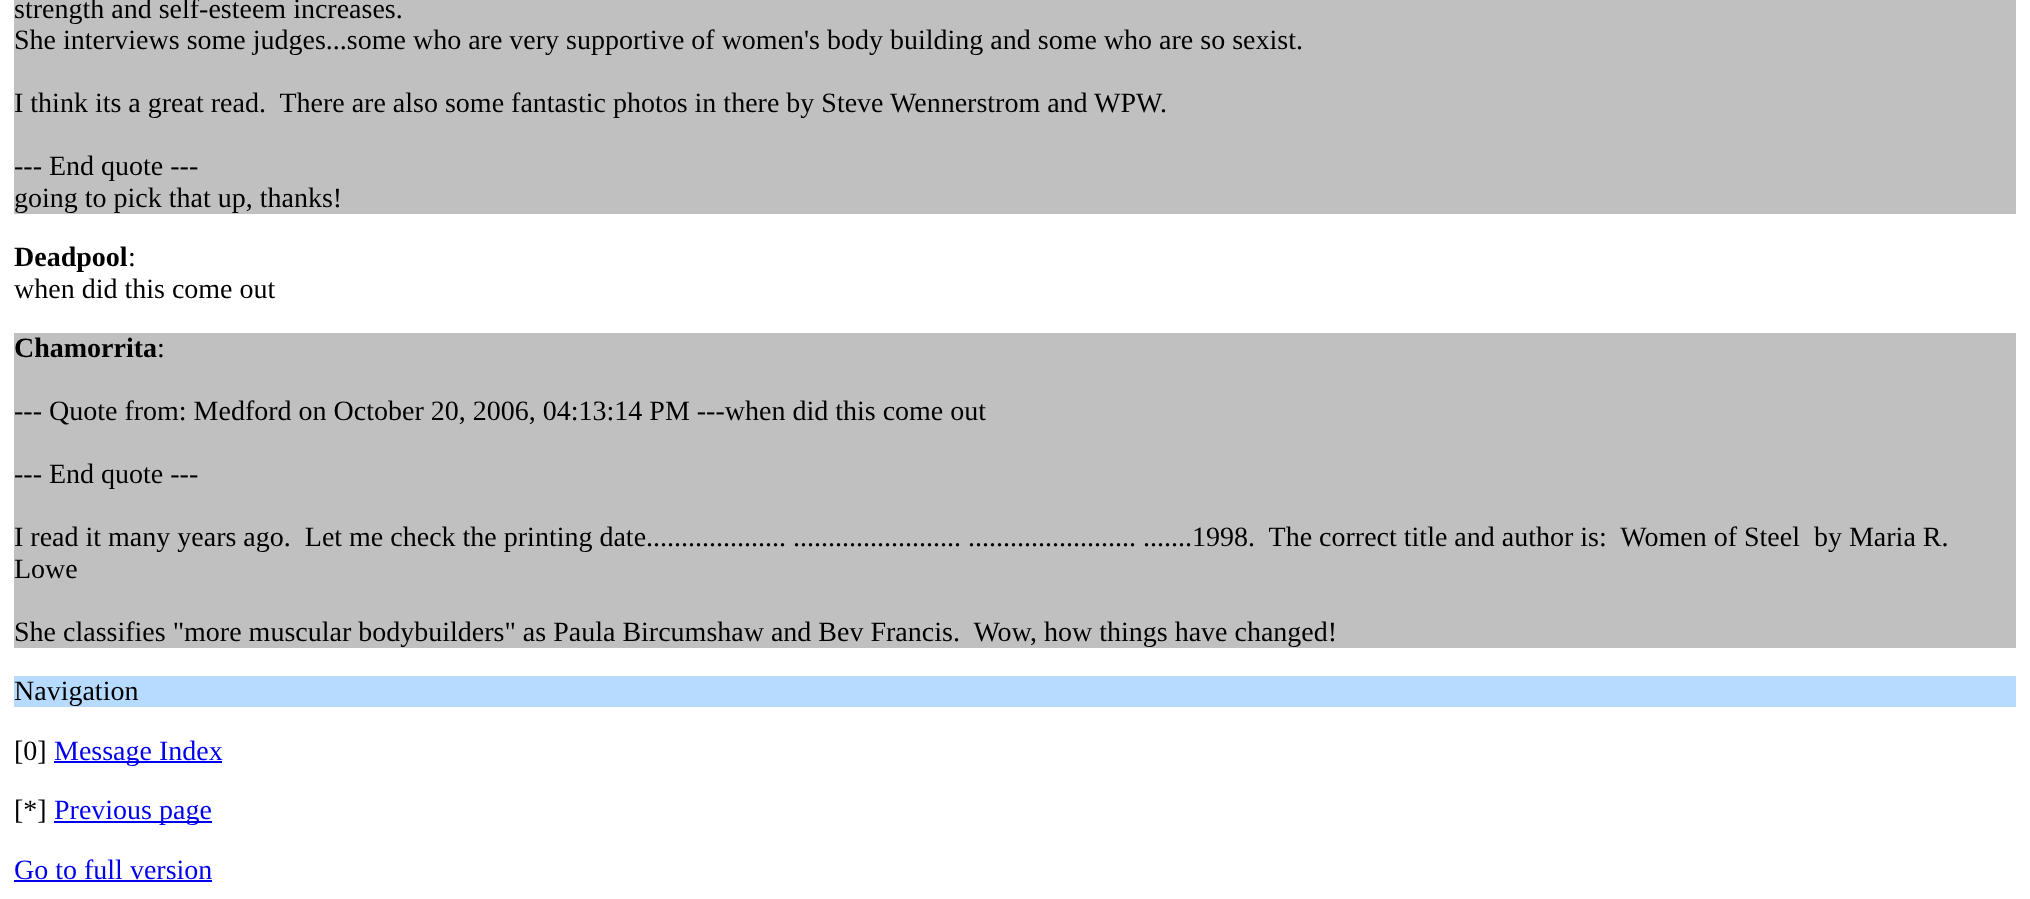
<svg xmlns="http://www.w3.org/2000/svg" width="2030" height="899">
	<rect width="100%" height="100%" fill="#FFFFFF" />
	<rect x="14" y="0" width="2002" height="214" fill="#C0C0C0" />
	<g font-family="Liberation Serif" font-size="28" fill="#000000">
		<text x="14" y="18">strength and self-esteem increases.</text>
		<text x="14" y="49">She interviews some judges...some who are very supportive of women's body building and some who are so sexist.</text>
		<text x="14" y="112" xml:space="preserve">I think its a great read.  There are also some fantastic photos in there by Steve Wennerstrom and WPW.</text>
		<text x="14" y="175">--- End quote ---</text>
		<text x="14" y="207">going to pick that up, thanks!</text>
	</g>
	<text x="14" y="266" font-family="Liberation Serif" font-size="28" font-weight="700" fill="#000000">Deadpool</text>
	<g font-family="Liberation Serif" font-size="28" fill="#000000">
		<text x="128" y="266">:</text>
		<text x="14" y="298">when did this come out</text>
	</g>
	<rect x="14" y="333" width="2002" height="315" fill="#C0C0C0" />
	<text x="14" y="357" font-family="Liberation Serif" font-size="28" font-weight="700" fill="#000000">Chamorrita</text>
	<g font-family="Liberation Serif" font-size="28" fill="#000000">
		<text x="157" y="357">:</text>
		<text x="14" y="420">--- Quote from: Medford on October 20, 2006, 04:13:14 PM ---when did this come out</text>
		<text x="14" y="483">--- End quote ---</text>
		<text x="14" y="546" xml:space="preserve">I read it many years ago.  Let me check the printing date.................... ........................ ........................ .......1998.  The correct title and author is:  Women of Steel  by Maria R.</text>
		<text x="14" y="578">Lowe</text>
		<text x="14" y="641" xml:space="preserve">She classifies "more muscular bodybuilders" as Paula Bircumshaw and Bev Francis.  Wow, how things have changed!</text>
	</g>
	<rect x="14" y="676" width="2002" height="31" fill="#B6DBFF" />
	<g font-family="Liberation Serif" font-size="28" fill="#000000">
		<text x="14" y="700">Navigation</text>
		<text x="14" y="760">[0]</text>
	</g>
	<rect x="54" y="761" width="168" height="2" fill="#0000EE" />
	<text x="54" y="760" font-family="Liberation Serif" font-size="28" fill="#0000EE">Message Index</text>
	<text x="14" y="819" font-family="Liberation Serif" font-size="28" fill="#000000">[*]</text>
	<rect x="54" y="821" width="158" height="2" fill="#0000EE" />
	<g font-family="Liberation Serif" font-size="28" fill="#0000EE">
		<text x="54" y="819">Previous page</text>
		<text x="14" y="879">Go to full version</text>
	</g>
	<rect x="14" y="880" width="198" height="2" fill="#0000EE" />
</svg>
